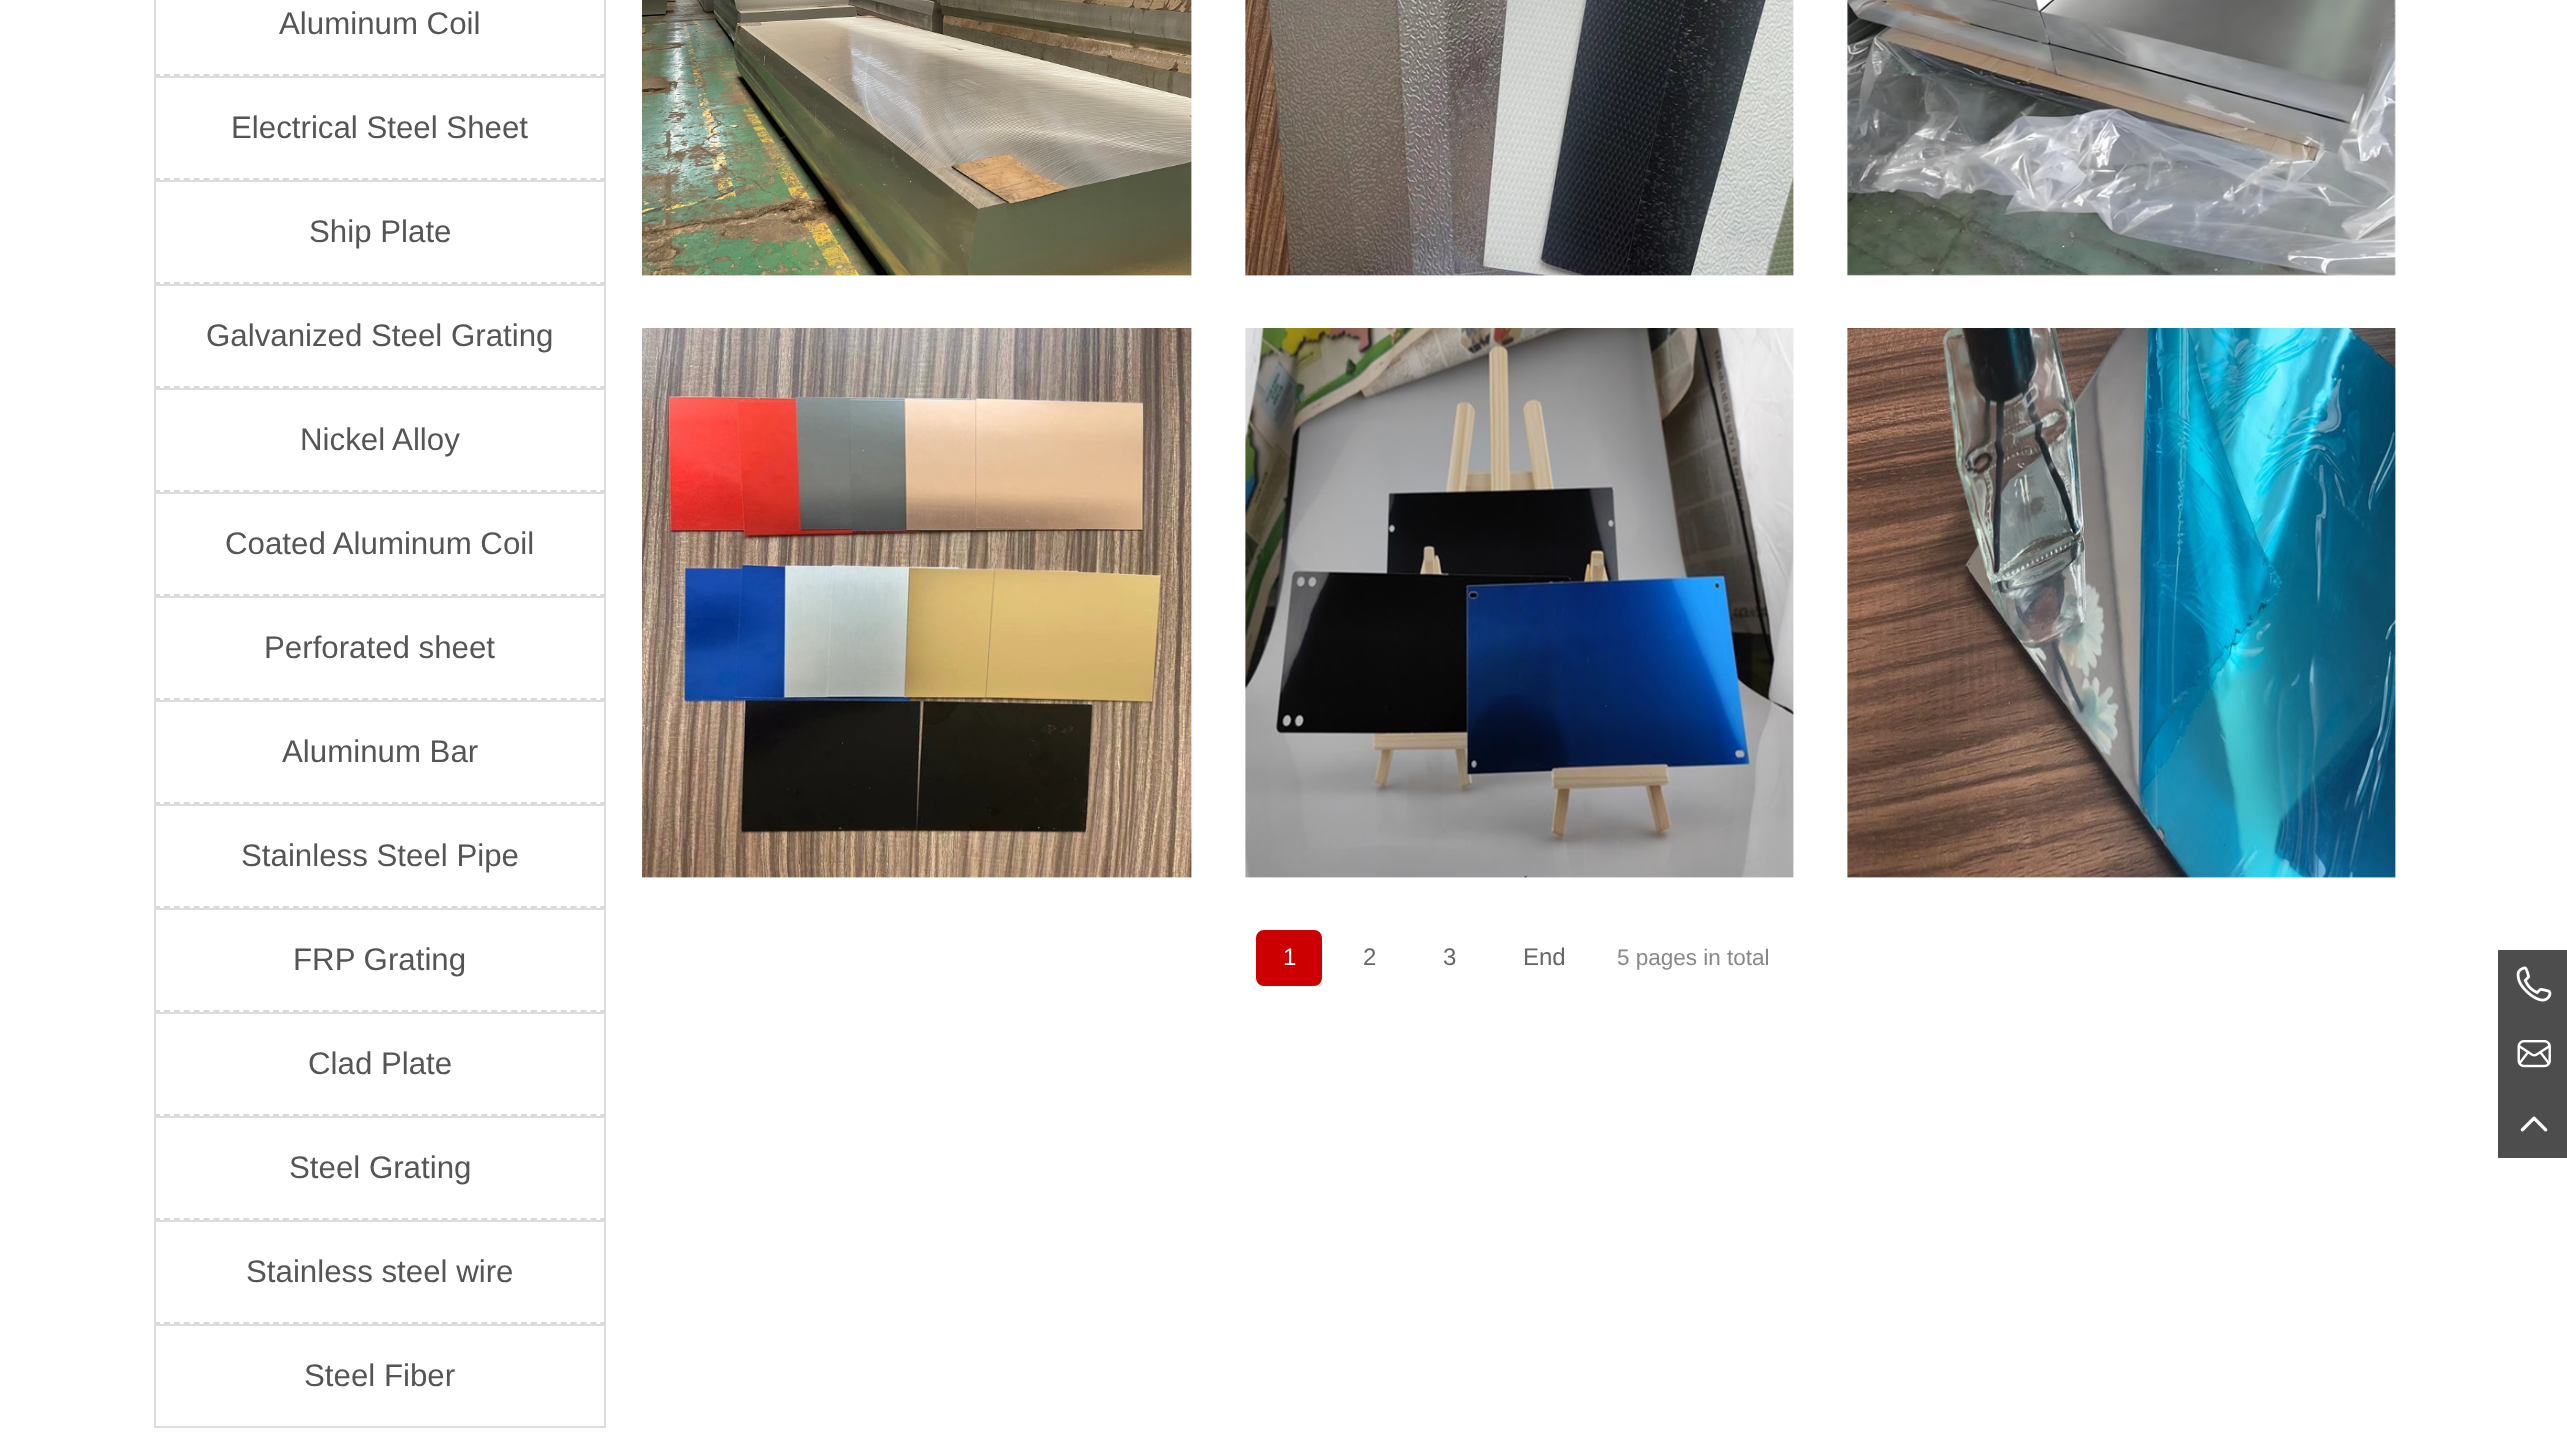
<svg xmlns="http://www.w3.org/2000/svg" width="2567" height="1447">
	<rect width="100%" height="100%" fill="#FFFFFF" />
	<rect x="604" y="0" width="2" height="76" fill="#DDDDDD" />
	<path d="M154 75H606" fill="none" stroke="#D9D9D9" stroke-width="2" stroke-dasharray="6 3.92" />
	<rect x="154" y="0" width="2" height="76" fill="#DDDDDD" />
	<text x="279" y="34" font-family="Liberation Sans" font-size="31.25" fill="#555555">Aluminum Coil</text>
	<rect x="154" y="76" width="452" height="2" fill="#DDDDDD" />
	<rect x="604" y="76" width="2" height="104" fill="#DDDDDD" />
	<path d="M154 179H606" fill="none" stroke="#D9D9D9" stroke-width="2" stroke-dasharray="6 3.92" />
	<rect x="154" y="76" width="2" height="104" fill="#DDDDDD" />
	<text x="231" y="138" font-family="Liberation Sans" font-size="31.25" fill="#555555">Electrical Steel Sheet</text>
	<rect x="154" y="180" width="452" height="2" fill="#DDDDDD" />
	<rect x="604" y="180" width="2" height="104" fill="#DDDDDD" />
	<path d="M154 283H606" fill="none" stroke="#D9D9D9" stroke-width="2" stroke-dasharray="6 3.92" />
	<rect x="154" y="180" width="2" height="104" fill="#DDDDDD" />
	<text x="309" y="242" font-family="Liberation Sans" font-size="31.25" fill="#555555">Ship Plate</text>
	<rect x="154" y="284" width="452" height="2" fill="#DDDDDD" />
	<rect x="604" y="284" width="2" height="104" fill="#DDDDDD" />
	<path d="M154 387H606" fill="none" stroke="#D9D9D9" stroke-width="2" stroke-dasharray="6 3.92" />
	<rect x="154" y="284" width="2" height="104" fill="#DDDDDD" />
	<text x="206" y="346" font-family="Liberation Sans" font-size="31.25" fill="#555555">Galvanized Steel Grating</text>
	<rect x="154" y="388" width="452" height="2" fill="#DDDDDD" />
	<rect x="604" y="388" width="2" height="104" fill="#DDDDDD" />
	<path d="M154 491H606" fill="none" stroke="#D9D9D9" stroke-width="2" stroke-dasharray="6 3.92" />
	<rect x="154" y="388" width="2" height="104" fill="#DDDDDD" />
	<text x="300" y="450" font-family="Liberation Sans" font-size="31.25" fill="#555555">Nickel Alloy</text>
	<rect x="154" y="492" width="452" height="2" fill="#DDDDDD" />
	<rect x="604" y="492" width="2" height="104" fill="#DDDDDD" />
	<path d="M154 595H606" fill="none" stroke="#D9D9D9" stroke-width="2" stroke-dasharray="6 3.92" />
	<rect x="154" y="492" width="2" height="104" fill="#DDDDDD" />
	<text x="225" y="554" font-family="Liberation Sans" font-size="31.25" fill="#555555">Coated Aluminum Coil</text>
	<rect x="154" y="596" width="452" height="2" fill="#DDDDDD" />
	<rect x="604" y="596" width="2" height="104" fill="#DDDDDD" />
	<path d="M154 699H606" fill="none" stroke="#D9D9D9" stroke-width="2" stroke-dasharray="6 3.92" />
	<rect x="154" y="596" width="2" height="104" fill="#DDDDDD" />
	<text x="264" y="658" font-family="Liberation Sans" font-size="31.25" fill="#555555">Perforated sheet</text>
	<rect x="154" y="700" width="452" height="2" fill="#DDDDDD" />
	<rect x="604" y="700" width="2" height="104" fill="#DDDDDD" />
	<path d="M154 803H606" fill="none" stroke="#D9D9D9" stroke-width="2" stroke-dasharray="6 3.92" />
	<rect x="154" y="700" width="2" height="104" fill="#DDDDDD" />
	<text x="282" y="762" font-family="Liberation Sans" font-size="31.25" fill="#555555">Aluminum Bar</text>
	<rect x="154" y="804" width="452" height="2" fill="#DDDDDD" />
	<rect x="604" y="804" width="2" height="104" fill="#DDDDDD" />
	<path d="M154 907H606" fill="none" stroke="#D9D9D9" stroke-width="2" stroke-dasharray="6 3.92" />
	<rect x="154" y="804" width="2" height="104" fill="#DDDDDD" />
	<text x="241" y="866" font-family="Liberation Sans" font-size="31.25" fill="#555555">Stainless Steel Pipe</text>
	<rect x="154" y="908" width="452" height="2" fill="#DDDDDD" />
	<rect x="604" y="908" width="2" height="104" fill="#DDDDDD" />
	<path d="M154 1011H606" fill="none" stroke="#D9D9D9" stroke-width="2" stroke-dasharray="6 3.92" />
	<rect x="154" y="908" width="2" height="104" fill="#DDDDDD" />
	<text x="293" y="970" font-family="Liberation Sans" font-size="31.25" fill="#555555">FRP Grating</text>
	<rect x="154" y="1012" width="452" height="2" fill="#DDDDDD" />
	<rect x="604" y="1012" width="2" height="104" fill="#DDDDDD" />
	<path d="M154 1115H606" fill="none" stroke="#D9D9D9" stroke-width="2" stroke-dasharray="6 3.92" />
	<rect x="154" y="1012" width="2" height="104" fill="#DDDDDD" />
	<text x="308" y="1074" font-family="Liberation Sans" font-size="31.25" fill="#555555">Clad Plate</text>
	<rect x="154" y="1116" width="452" height="2" fill="#DDDDDD" />
	<rect x="604" y="1116" width="2" height="104" fill="#DDDDDD" />
	<path d="M154 1219H606" fill="none" stroke="#D9D9D9" stroke-width="2" stroke-dasharray="6 3.92" />
	<rect x="154" y="1116" width="2" height="104" fill="#DDDDDD" />
	<text x="289" y="1178" font-family="Liberation Sans" font-size="31.25" fill="#555555">Steel Grating</text>
	<rect x="154" y="1220" width="452" height="2" fill="#DDDDDD" />
	<rect x="604" y="1220" width="2" height="104" fill="#DDDDDD" />
	<path d="M154 1323H606" fill="none" stroke="#D9D9D9" stroke-width="2" stroke-dasharray="6 3.92" />
	<rect x="154" y="1220" width="2" height="104" fill="#DDDDDD" />
	<text x="246" y="1282" font-family="Liberation Sans" font-size="31.25" fill="#555555">Stainless steel wire</text>
	<rect x="155" y="1325" width="450" height="102" fill="none" stroke="#DDDDDD" stroke-width="2" />
	<text x="304" y="1386" font-family="Liberation Sans" font-size="31.25" fill="#555555">Steel Fiber</text>
	<image x="642" y="0" width="550" height="276" href="assets/img1.png" />
	<image x="1245" y="0" width="549" height="276" href="assets/img2.png" />
	<image x="1847" y="0" width="549" height="276" href="assets/img3.png" />
	<image x="642" y="328" width="550" height="550" href="assets/img4.png" />
	<image x="1245" y="328" width="549" height="550" href="assets/img5.png" />
	<image x="1847" y="328" width="549" height="550" href="assets/img6.png" />
	<rect x="1257" y="931" width="64" height="54" rx="7" fill="#CC0000" stroke="#CC0000" stroke-width="2" />
	<text x="1283" y="965" font-family="Liberation Sans" font-size="24" fill="#FFFFFF">1</text>
	<g font-family="Liberation Sans" font-size="24" fill="#666666">
		<text x="1363" y="965">2</text>
		<text x="1443" y="965">3</text>
		<text x="1523" y="965">End</text>
	</g>
	<text x="1617" y="965" font-family="Liberation Sans" font-size="22.5" fill="#888888">5 pages in total</text>
	<rect x="2498" y="950" width="69" height="208" fill="#4D4D4D" />
	<image x="2516" y="966" width="36" height="36" href="assets/img7.png" />
	<image x="2517" y="1040" width="34" height="28" href="assets/img8.png" />
	<image x="2520" y="1116" width="28" height="16" href="assets/img9.png" />
</svg>
